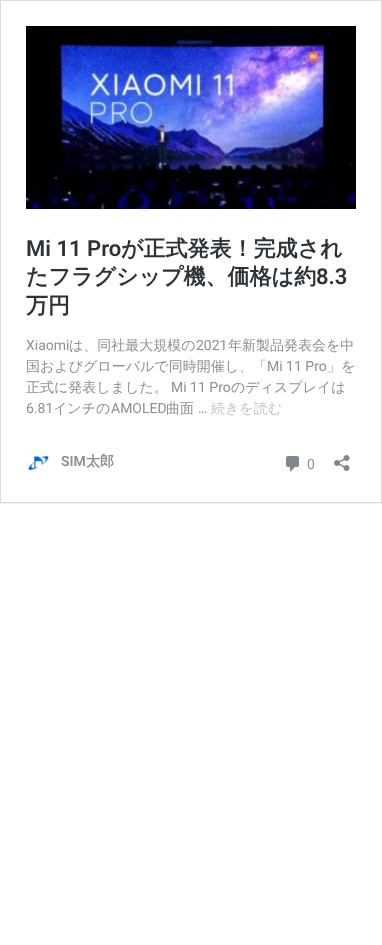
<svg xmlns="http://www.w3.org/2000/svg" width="382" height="945">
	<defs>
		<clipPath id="clip1"><rect x="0" y="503" width="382" height="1" /></clipPath>
	</defs>
	<rect width="100%" height="100%" fill="#FFFFFF" />
	<g clip-path="url(#clip1)">
		<rect x="0" y="1" width="382" height="503" fill="#000000" fill-opacity="0.05" filter="blur(0.5px)" />
	</g>
	<rect x="0.5" y="0.5" width="381" height="502" fill="none" stroke="#DCDCDE" />
	<image x="26" y="26" width="330" height="183" href="assets/img1.png" />
	<text x="26" y="256" font-family="Roboto" font-size="22" font-weight="600" fill="#2C3338">Mi 11 Pro</text>
	<g font-family="WenQuanYi Zen Hei" font-size="22" font-weight="700" fill="#2C3338">
		<text x="121" y="256">が正式発表！完成され</text>
		<text x="26" y="284">たフラグシップ機、価格は約</text>
	</g>
	<text x="316" y="284" font-family="Roboto" font-size="22" font-weight="600" fill="#2C3338">8.3</text>
	<text x="26" y="313" font-family="WenQuanYi Zen Hei" font-size="22" font-weight="700" fill="#2C3338">万円</text>
	<text x="26" y="350" font-family="Roboto" font-size="14" fill="#8C8F94">Xiaomi</text>
	<text x="69" y="350" font-family="WenQuanYi Zen Hei" font-size="14" font-weight="500" fill="#8C8F94">は、同社最大規模の</text>
	<text x="196" y="350" font-family="Roboto" font-size="14" fill="#8C8F94">2021</text>
	<g font-family="WenQuanYi Zen Hei" font-size="14" font-weight="500" fill="#8C8F94">
		<text x="228" y="350">年新製品発表会を中</text>
		<text x="26" y="371">国およびグローバルで同時開催し、「</text>
	</g>
	<text x="267" y="371" font-family="Roboto" font-size="14" fill="#8C8F94">Mi 11 Pro</text>
	<g font-family="WenQuanYi Zen Hei" font-size="14" font-weight="500" fill="#8C8F94">
		<text x="327" y="371">」を</text>
		<text x="26" y="392">正式に発表しました。</text>
	</g>
	<text x="171" y="392" font-family="Roboto" font-size="14" fill="#8C8F94">Mi 11 Pro</text>
	<text x="231" y="392" font-family="WenQuanYi Zen Hei" font-size="14" font-weight="500" fill="#8C8F94">のディスプレイは</text>
	<text x="26" y="413" font-family="Roboto" font-size="14" fill="#8C8F94">6.81</text>
	<text x="53" y="413" font-family="WenQuanYi Zen Hei" font-size="14" font-weight="500" fill="#8C8F94">インチの</text>
	<text x="111" y="413" font-family="Roboto" font-size="14" fill="#8C8F94">AMOLED</text>
	<text x="166" y="413" font-family="WenQuanYi Zen Hei" font-size="14" font-weight="500" fill="#8C8F94">曲面</text>
	<text x="198" y="413" font-family="Roboto" font-size="14" fill="#8C8F94">…</text>
	<text x="211" y="413" font-family="WenQuanYi Zen Hei" font-size="14" font-weight="500" fill="#C3C4C7">続きを読む</text>
	<image x="28" y="455" width="21" height="16" href="assets/img2.png" />
	<text x="61" y="466" font-family="Roboto" font-size="14" font-weight="600" fill="#8C8F94">SIM</text>
	<text x="86" y="466" font-family="WenQuanYi Zen Hei" font-size="14" font-weight="700" fill="#8C8F94">太郎</text>
	<image x="286" y="456" width="13" height="16" href="assets/img3.png" />
	<text x="307" y="469" font-family="Roboto" font-size="14" fill="#8C8F94">0</text>
	<image x="334" y="455" width="16" height="16" href="assets/img4.png" />
</svg>
